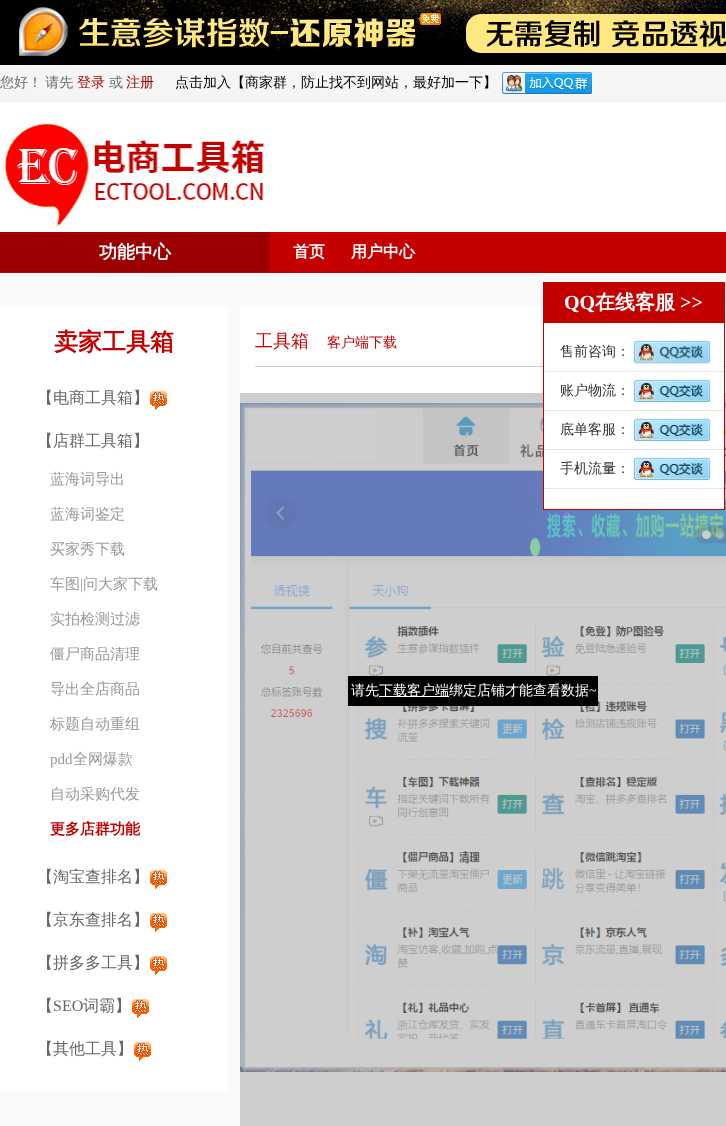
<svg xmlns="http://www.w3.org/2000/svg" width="726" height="1126">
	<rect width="100%" height="100%" fill="#FAFAFA" />
	<rect x="0" y="0" width="726" height="65" fill="#000000" />
	<image x="19" y="0" width="707" height="60" href="assets/img1.png" />
	<rect x="0" y="65" width="726" height="36" fill="#F5F5F5" />
	<rect x="0" y="101" width="726" height="1" fill="#EEEEEE" />
	<text x="0" y="87" word-spacing="-1" font-family="WenQuanYi Zen Hei" font-size="14" font-weight="500" fill="#6C6C6C">您好！ 请先</text>
	<text x="77" y="87" font-family="WenQuanYi Zen Hei" font-size="14" font-weight="500" fill="#A10000">登录</text>
	<text x="109" y="87" font-family="WenQuanYi Zen Hei" font-size="14" font-weight="500" fill="#6C6C6C">或</text>
	<text x="126" y="87" font-family="WenQuanYi Zen Hei" font-size="14" font-weight="500" fill="#A10000">注册</text>
	<image x="502" y="72" width="90" height="22" href="assets/img2.png" />
	<text x="175" y="87" font-family="WenQuanYi Zen Hei" font-size="14" font-weight="500" fill="#000000">点击加入【商家群，防止找不到网站，最好加一下】</text>
	<rect x="0" y="102" width="726" height="130" fill="#FFFFFF" />
	<rect x="0" y="272" width="726" height="1" fill="#C40000" />
	<image x="2" y="123" width="263" height="105" href="assets/img3.png" />
	<rect x="0" y="232" width="270" height="40" fill="#9C0000" />
	<text x="99" y="258" font-family="WenQuanYi Zen Hei" font-size="18" font-weight="700" fill="#FFFFFF">功能中心</text>
	<rect x="270" y="232" width="456" height="40" fill="#C40000" />
	<g font-family="WenQuanYi Zen Hei" font-size="16" font-weight="700" fill="#FFFFFF">
		<text x="293" y="257">首页</text>
		<text x="351" y="257">用户中心</text>
	</g>
	<rect x="0" y="306" width="228" height="786" fill="#FFFFFF" />
	<text x="54" y="350" font-family="WenQuanYi Zen Hei" font-size="24" font-weight="700" fill="#C40000">卖家工具箱</text>
	<text x="37" y="403" font-family="WenQuanYi Zen Hei" font-size="16" font-weight="500" fill="#666666">【电商工具箱】</text>
	<image x="150" y="391" width="17" height="19" href="assets/img4.png" />
	<text x="37" y="446" font-family="WenQuanYi Zen Hei" font-size="16" font-weight="500" fill="#666666">【店群工具箱】</text>
	<g font-family="WenQuanYi Zen Hei" font-size="15" font-weight="500" fill="#999999">
		<text x="50" y="484">蓝海词导出</text>
		<text x="50" y="519">蓝海词鉴定</text>
		<text x="50" y="554">买家秀下载</text>
		<text x="50" y="589">车图</text>
	</g>
	<text x="80" y="589" font-family="Liberation Serif" font-size="15" fill="#999999">|</text>
	<g font-family="WenQuanYi Zen Hei" font-size="15" font-weight="500" fill="#999999">
		<text x="83" y="589">问大家下载</text>
		<text x="50" y="624">实拍检测过滤</text>
		<text x="50" y="659">僵尸商品清理</text>
		<text x="50" y="694">导出全店商品</text>
		<text x="50" y="729">标题自动重组</text>
	</g>
	<text x="50" y="764" font-family="Liberation Serif" font-size="15" fill="#999999">pdd</text>
	<g font-family="WenQuanYi Zen Hei" font-size="15" font-weight="500" fill="#999999">
		<text x="73" y="764">全网爆款</text>
		<text x="50" y="799">自动采购代发</text>
	</g>
	<text x="50" y="834" font-family="WenQuanYi Zen Hei" font-size="15" font-weight="700" fill="#C40000">更多店群功能</text>
	<text x="37" y="882" font-family="WenQuanYi Zen Hei" font-size="16" font-weight="500" fill="#666666">【淘宝查排名】</text>
	<image x="150" y="870" width="17" height="19" href="assets/img4.png" />
	<text x="37" y="925" font-family="WenQuanYi Zen Hei" font-size="16" font-weight="500" fill="#666666">【京东查排名】</text>
	<image x="150" y="913" width="17" height="19" href="assets/img4.png" />
	<text x="37" y="968" font-family="WenQuanYi Zen Hei" font-size="16" font-weight="500" fill="#666666">【拼多多工具】</text>
	<image x="150" y="956" width="17" height="19" href="assets/img4.png" />
	<text x="37" y="1011" font-family="WenQuanYi Zen Hei" font-size="16" font-weight="500" fill="#666666">【</text>
	<text x="53" y="1011" font-family="Liberation Serif" font-size="16" fill="#666666">SEO</text>
	<text x="83" y="1011" font-family="WenQuanYi Zen Hei" font-size="16" font-weight="500" fill="#666666">词霸】</text>
	<image x="132" y="999" width="17" height="19" href="assets/img4.png" />
	<text x="37" y="1054" font-family="WenQuanYi Zen Hei" font-size="16" font-weight="500" fill="#666666">【其他工具】</text>
	<image x="134" y="1042" width="17" height="19" href="assets/img4.png" />
	<rect x="240" y="306" width="486" height="87" fill="#FFFFFF" />
	<rect x="240" y="393" width="486" height="733" fill="#CECECE" />
	<rect x="255" y="366" width="471" height="1" fill="#CCCCCC" />
	<text x="255" y="347" font-family="WenQuanYi Zen Hei" font-size="18" font-weight="500" fill="#C40000">工具箱</text>
	<text x="327" y="347" font-family="WenQuanYi Zen Hei" font-size="14" font-weight="500" fill="#C40000">客户端下载</text>
	<image x="240" y="403" width="486" height="669" href="assets/img5.png" />
	<rect x="348" y="676" width="250" height="30" fill="#000000" />
	<text x="351" y="695" font-family="WenQuanYi Zen Hei" font-size="14" font-weight="500" fill="#FFFFFF">请先</text>
	<rect x="379" y="696" width="70" height="1" fill="#FFFFFF" />
	<text x="379" y="695" font-family="WenQuanYi Zen Hei" font-size="14" font-weight="500" fill="#FFFFFF">下载客户端绑定店铺才能查看数据</text>
	<text x="589" y="695" font-family="Liberation Serif" font-size="14" fill="#FFFFFF">~</text>
	<rect x="543" y="282" width="182" height="228" fill="#C40000" />
	<text x="564" y="309" font-family="Liberation Serif" font-size="20" font-weight="700" fill="#FFFFFF">QQ</text>
	<text x="595" y="309" font-family="WenQuanYi Zen Hei" font-size="20" font-weight="700" fill="#FFFFFF">在线客服</text>
	<text x="680" y="309" font-family="Liberation Serif" font-size="20" font-weight="700" fill="#FFFFFF">&gt;&gt;</text>
	<rect x="544" y="323" width="180" height="186" fill="#FFFFFF" />
	<rect x="544" y="371" width="180" height="1" fill="#E6E4E4" />
	<text x="560" y="356" font-family="WenQuanYi Zen Hei" font-size="14" font-weight="500" fill="#333333">售前咨询：</text>
	<image x="633" y="340" width="78" height="25" href="assets/img6.png" />
	<rect x="544" y="410" width="180" height="1" fill="#E6E4E4" />
	<text x="560" y="395" font-family="WenQuanYi Zen Hei" font-size="14" font-weight="500" fill="#333333">账户物流：</text>
	<image x="633" y="379" width="78" height="25" href="assets/img7.png" />
	<rect x="544" y="449" width="180" height="1" fill="#E6E4E4" />
	<text x="560" y="434" font-family="WenQuanYi Zen Hei" font-size="14" font-weight="500" fill="#333333">底单客服：</text>
	<image x="633" y="418" width="78" height="25" href="assets/img7.png" />
	<rect x="544" y="488" width="180" height="1" fill="#E6E4E4" />
	<text x="560" y="473" font-family="WenQuanYi Zen Hei" font-size="14" font-weight="500" fill="#333333">手机流量：</text>
	<image x="633" y="457" width="78" height="25" href="assets/img7.png" />
</svg>
